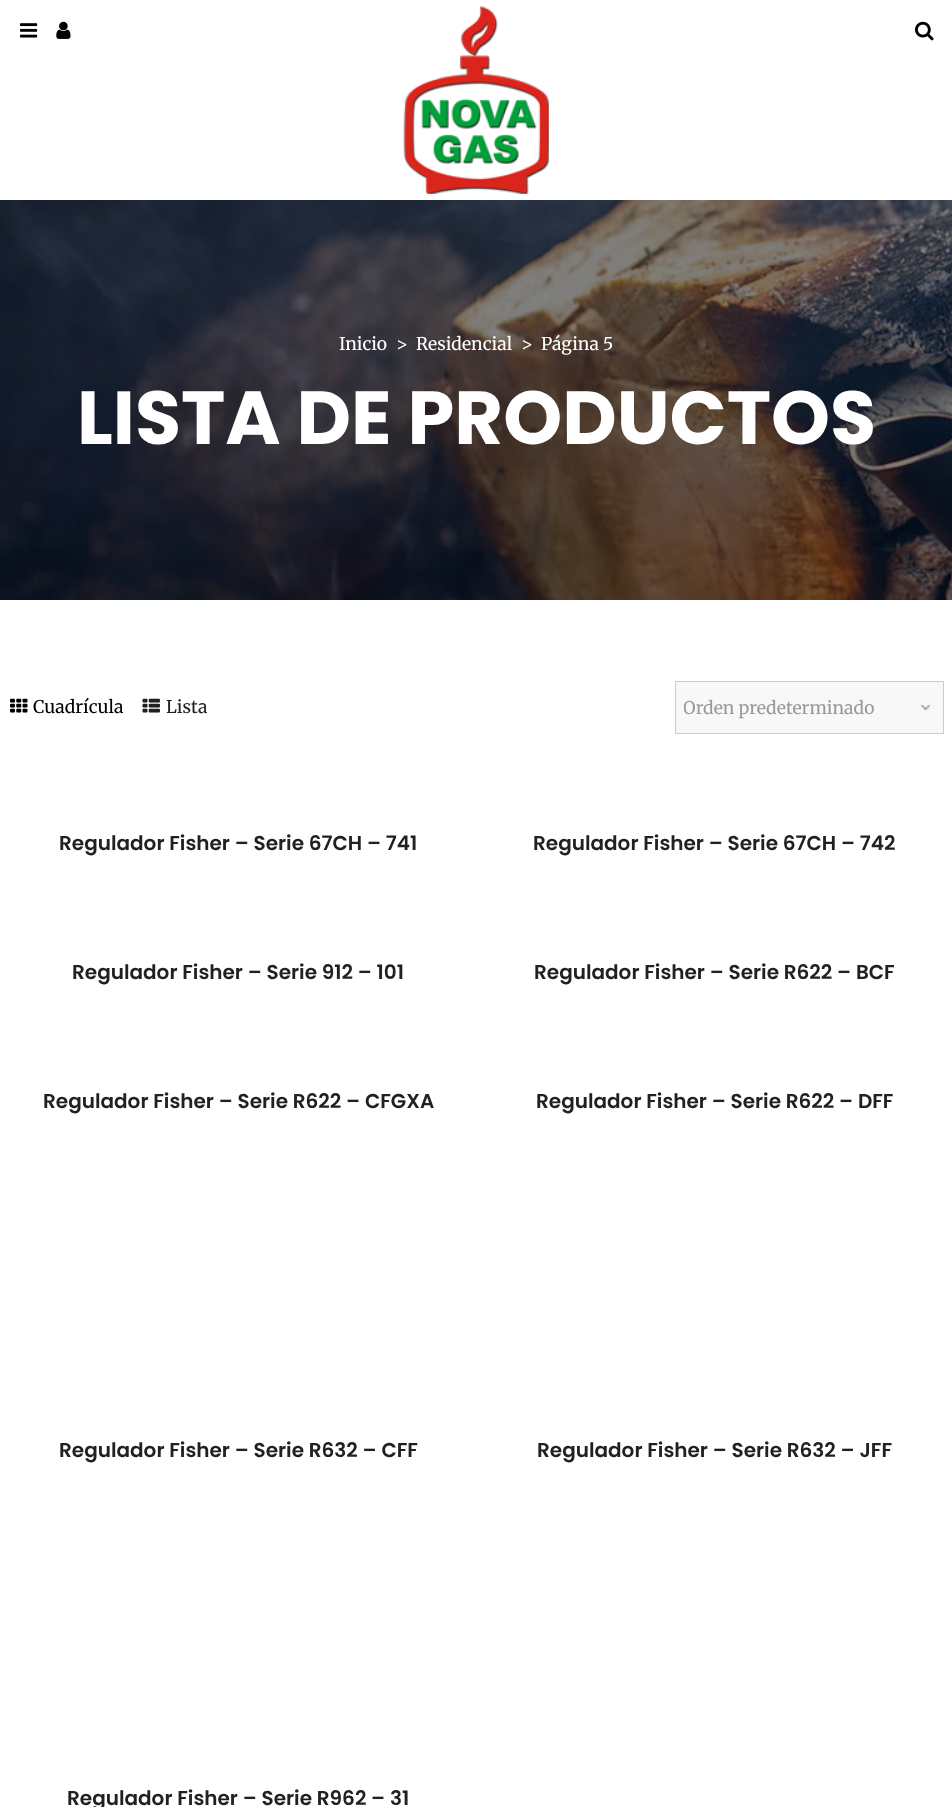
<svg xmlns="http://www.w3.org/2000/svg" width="952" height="1807">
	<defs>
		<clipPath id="clip1"><rect x="684" y="690" width="251" height="35" /></clipPath>
	</defs>
	<rect width="100%" height="100%" fill="#FFFFFF" />
	<image x="20" y="23" width="18" height="15" href="assets/img1.png" />
	<image x="56" y="21" width="15" height="18" href="assets/img2.png" />
	<image x="403" y="6" width="146" height="188" href="assets/img3.png" />
	<image x="915" y="21" width="19" height="20" href="assets/img4.png" />
	<image x="0" y="200" width="952" height="400" href="assets/img5.png" />
	<g font-family="Merriweather" font-size="17.5" fill="#FFFFFF">
		<text x="339" y="350">Inicio</text>
		<text x="396" y="350">&gt;</text>
		<text x="416" y="350">Residencial</text>
		<text x="521" y="350">&gt;</text>
		<text x="541" y="350">Página 5</text>
	</g>
	<text x="77" y="444" font-family="Poppins" font-size="75" font-weight="700" fill="#FFFFFF">LISTA DE PRODUCTOS</text>
	<image x="10" y="698" width="18" height="15" href="assets/img6.png" />
	<text x="33" y="713" font-family="Merriweather" font-size="17.5" fill="#000000">Cuadrícula</text>
	<image x="142" y="698" width="18" height="15" href="assets/img7.png" />
	<text x="166" y="713" font-family="Merriweather" font-size="17.5" fill="#212121">Lista</text>
	<rect x="676" y="682" width="267" height="51" fill="#F8F8F8" />
	<image x="921" y="705" width="9" height="5" href="assets/img8.png" />
	<rect x="675.5" y="681.5" width="268" height="52" fill="none" stroke="#CCCCCC" />
	<g clip-path="url(#clip1)">
		<text x="683" y="714" font-family="Merriweather" font-size="17.5" fill="#999999">Orden predeterminado</text>
	</g>
	<g font-family="Poppins" font-size="20" font-weight="600" fill="#212121">
		<text x="59" y="850">Regulador Fisher – Serie 67CH – 741</text>
		<text x="533" y="850">Regulador Fisher – Serie 67CH – 742</text>
		<text x="72" y="979">Regulador Fisher – Serie 912 – 101</text>
		<text x="534" y="979">Regulador Fisher – Serie R622 – BCF</text>
		<text x="43" y="1108">Regulador Fisher – Serie R622 – CFGXA</text>
		<text x="536" y="1108">Regulador Fisher – Serie R622 – DFF</text>
		<text x="59" y="1457">Regulador Fisher – Serie R632 – CFF</text>
		<text x="537" y="1457">Regulador Fisher – Serie R632 – JFF</text>
		<text x="67" y="1805">Regulador Fisher – Serie R962 – 31</text>
	</g>
</svg>
